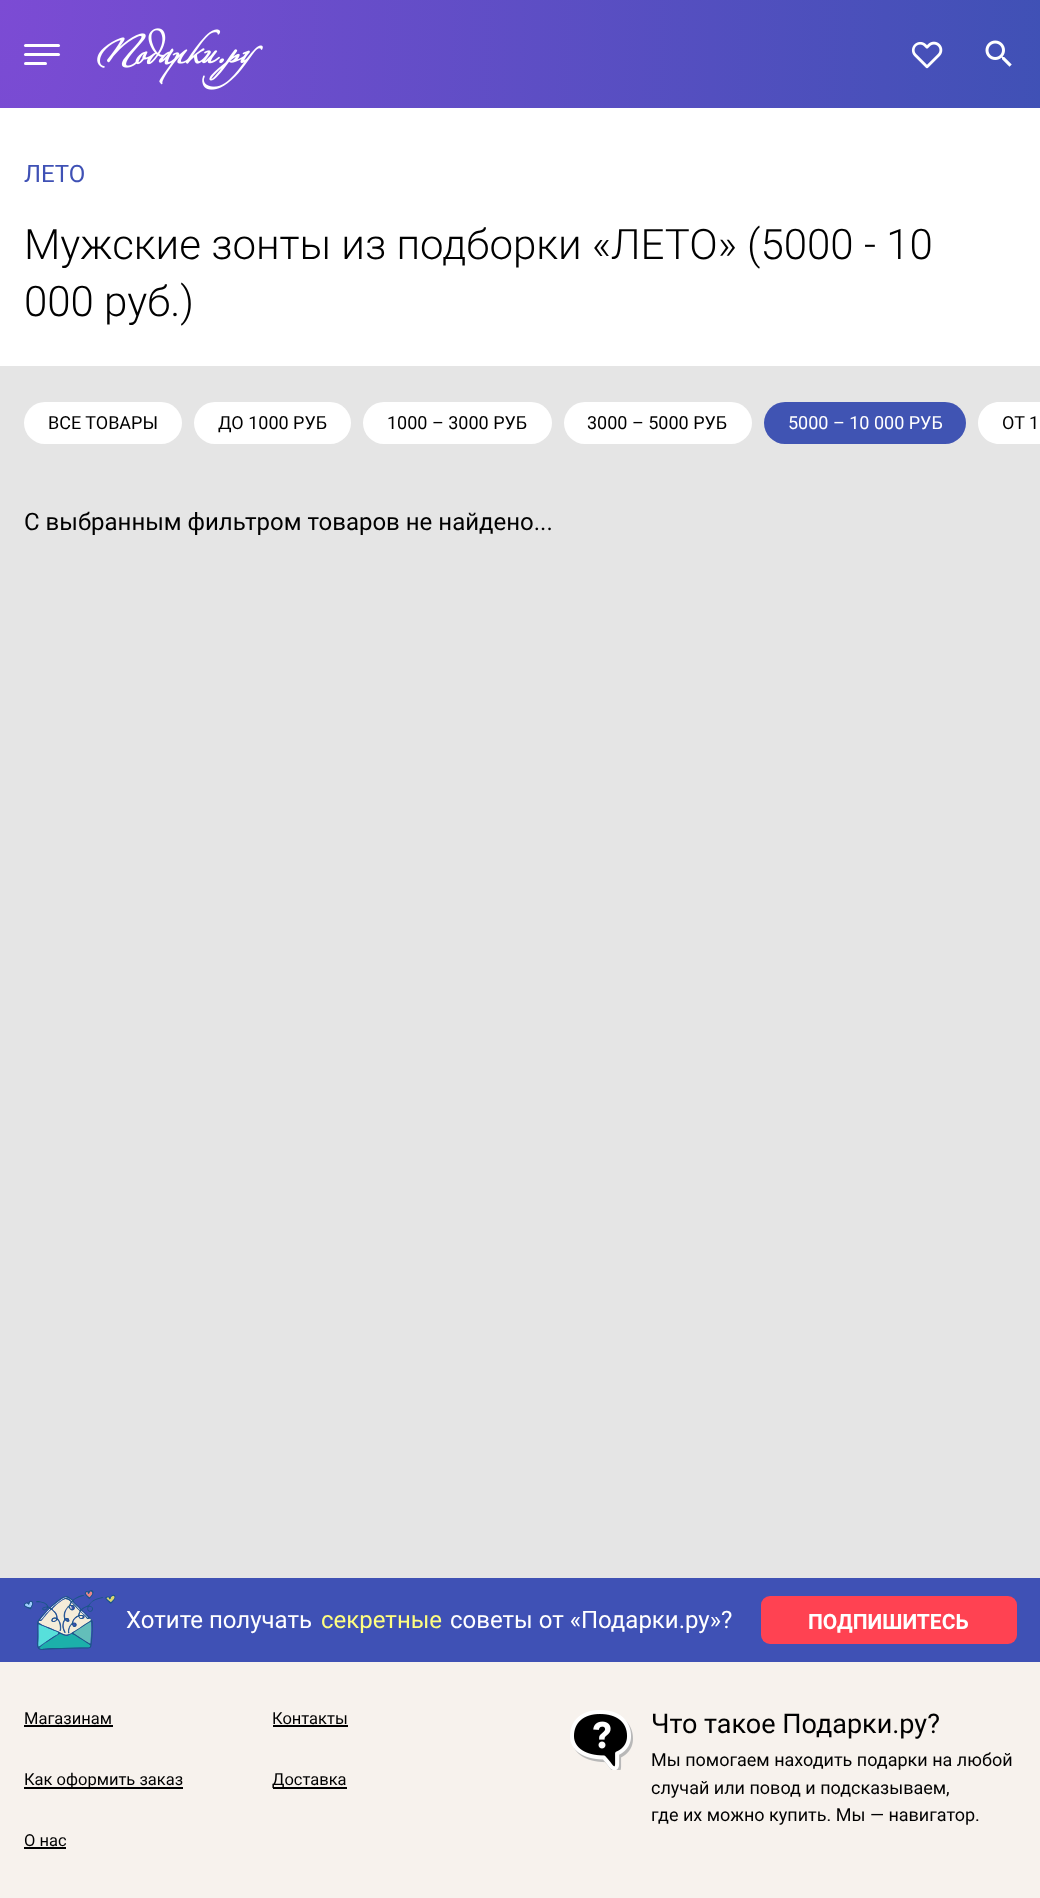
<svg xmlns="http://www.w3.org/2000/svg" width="1040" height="1898">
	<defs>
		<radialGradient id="g1" gradientUnits="userSpaceOnUse" cx="0" cy="0" r="1" gradientTransform="matrix(1058 0 0 2212 0 0)"><stop offset="0" stop-color="#7C4BD4" /><stop offset="1" stop-color="#3F51B5" /></radialGradient>
	</defs>
	<rect width="100%" height="100%" fill="#FFFFFF" />
	<rect x="0" y="0" width="1040" height="108" fill="url(#g1)" />
	<rect x="24" y="44" width="36" height="3" rx="1.5" fill="#FFFFFF" />
	<rect x="24" y="53" width="36" height="3" rx="1.5" fill="#FFFFFF" />
	<rect x="24" y="62" width="23" height="3" rx="1.5" fill="#FFFFFF" />
	<image x="97" y="28" width="166" height="62" href="assets/img1.png" />
	<image x="911" y="41" width="32" height="28" href="assets/img2.png" />
	<image x="985" y="40" width="27" height="27" href="assets/img3.png" />
	<text x="24" y="182" font-family="Roboto" font-size="24" fill="#3F51B5">ЛЕТО</text>
	<g font-family="Roboto" font-size="42" font-weight="300" fill="#000000">
		<text x="24" y="259">Мужские зонты из подборки «ЛЕТО» (5000 - 10</text>
		<text x="24" y="316">000 руб.)</text>
	</g>
	<rect x="0" y="366" width="1040" height="1212" fill="#E5E5E5" />
	<rect x="24" y="402" width="158" height="42" rx="21" fill="#FFFFFF" />
	<text x="48" y="429" font-family="Roboto" font-size="18" fill="#000000">ВСЕ ТОВАРЫ</text>
	<rect x="194" y="402" width="157" height="42" rx="21" fill="#FFFFFF" />
	<text x="218" y="429" font-family="Roboto" font-size="18" fill="#000000">ДО 1000 РУБ</text>
	<rect x="363" y="402" width="189" height="42" rx="21" fill="#FFFFFF" />
	<text x="387" y="429" font-family="Roboto" font-size="18" fill="#000000">1000 – 3000 РУБ</text>
	<rect x="564" y="402" width="188" height="42" rx="21" fill="#FFFFFF" />
	<text x="587" y="429" font-family="Roboto" font-size="18" fill="#000000">3000 – 5000 РУБ</text>
	<rect x="764" y="402" width="202" height="42" rx="21" fill="#4054B3" />
	<text x="788" y="429" font-family="Roboto" font-size="18" fill="#FFFFFF">5000 – 10 000 РУБ</text>
	<path d="M999 402H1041V444H999C987.5 444 978 434.5 978 423C978 411.5 987.5 402 999 402Z" fill="#FFFFFF" />
	<text x="1002" y="429" font-family="Roboto" font-size="18" fill="#000000">ОТ 1</text>
	<text x="24" y="530" font-family="Roboto" font-size="24" fill="#000000">С выбранным фильтром товаров не найдено...</text>
	<rect x="0" y="1662" width="1040" height="236" fill="#F7F2ED" />
	<rect x="0" y="1578" width="1040" height="84" fill="#3F51B5" />
	<image x="24" y="1590" width="92" height="60" href="assets/img4.png" />
	<text x="126" y="1628" font-family="Roboto" font-size="24" fill="#FFFFFF">Хотите получать</text>
	<text x="321" y="1628" font-family="Roboto" font-size="24" fill="#FFFE80">секретные</text>
	<text x="450" y="1628" font-family="Roboto" font-size="24" fill="#FFFFFF">советы от «Подарки.ру»?</text>
	<rect x="761" y="1596" width="256" height="48" rx="9" fill="#FF4252" />
	<text x="808" y="1629" font-family="Roboto" font-size="21" font-weight="700" fill="#FFFFFF">ПОДПИШИТЕСЬ</text>
	<text x="24" y="1724" font-family="Roboto" font-size="16.5" fill="#000000">Магазинам</text>
	<rect x="24" y="1725" width="89" height="2" fill="#000000" />
	<text x="272" y="1724" font-family="Roboto" font-size="16.5" fill="#000000">Контакты</text>
	<rect x="273" y="1725" width="75" height="2" fill="#000000" />
	<rect x="24" y="1787" width="159" height="2" fill="#000000" />
	<text x="24" y="1785" font-family="Roboto" font-size="16.5" fill="#000000">Как оформить заказ</text>
	<rect x="273" y="1787" width="74" height="2" fill="#000000" />
	<g font-family="Roboto" font-size="16.5" fill="#000000">
		<text x="272" y="1785">Доставка</text>
		<text x="24" y="1846">О нас</text>
	</g>
	<rect x="24" y="1847" width="42" height="2" fill="#000000" />
	<image x="570" y="1710" width="63" height="60" href="assets/img5.png" />
	<text x="651" y="1733" font-family="Roboto" font-size="27" fill="#000000">Что такое Подарки.ру?</text>
	<g font-family="Roboto" font-size="18" fill="#000000">
		<text x="651" y="1766">Мы помогаем находить подарки на любой</text>
		<text x="651" y="1794">случай или повод и подсказываем,</text>
		<text x="651" y="1821">где их можно купить. Мы — навигатор.</text>
	</g>
</svg>
